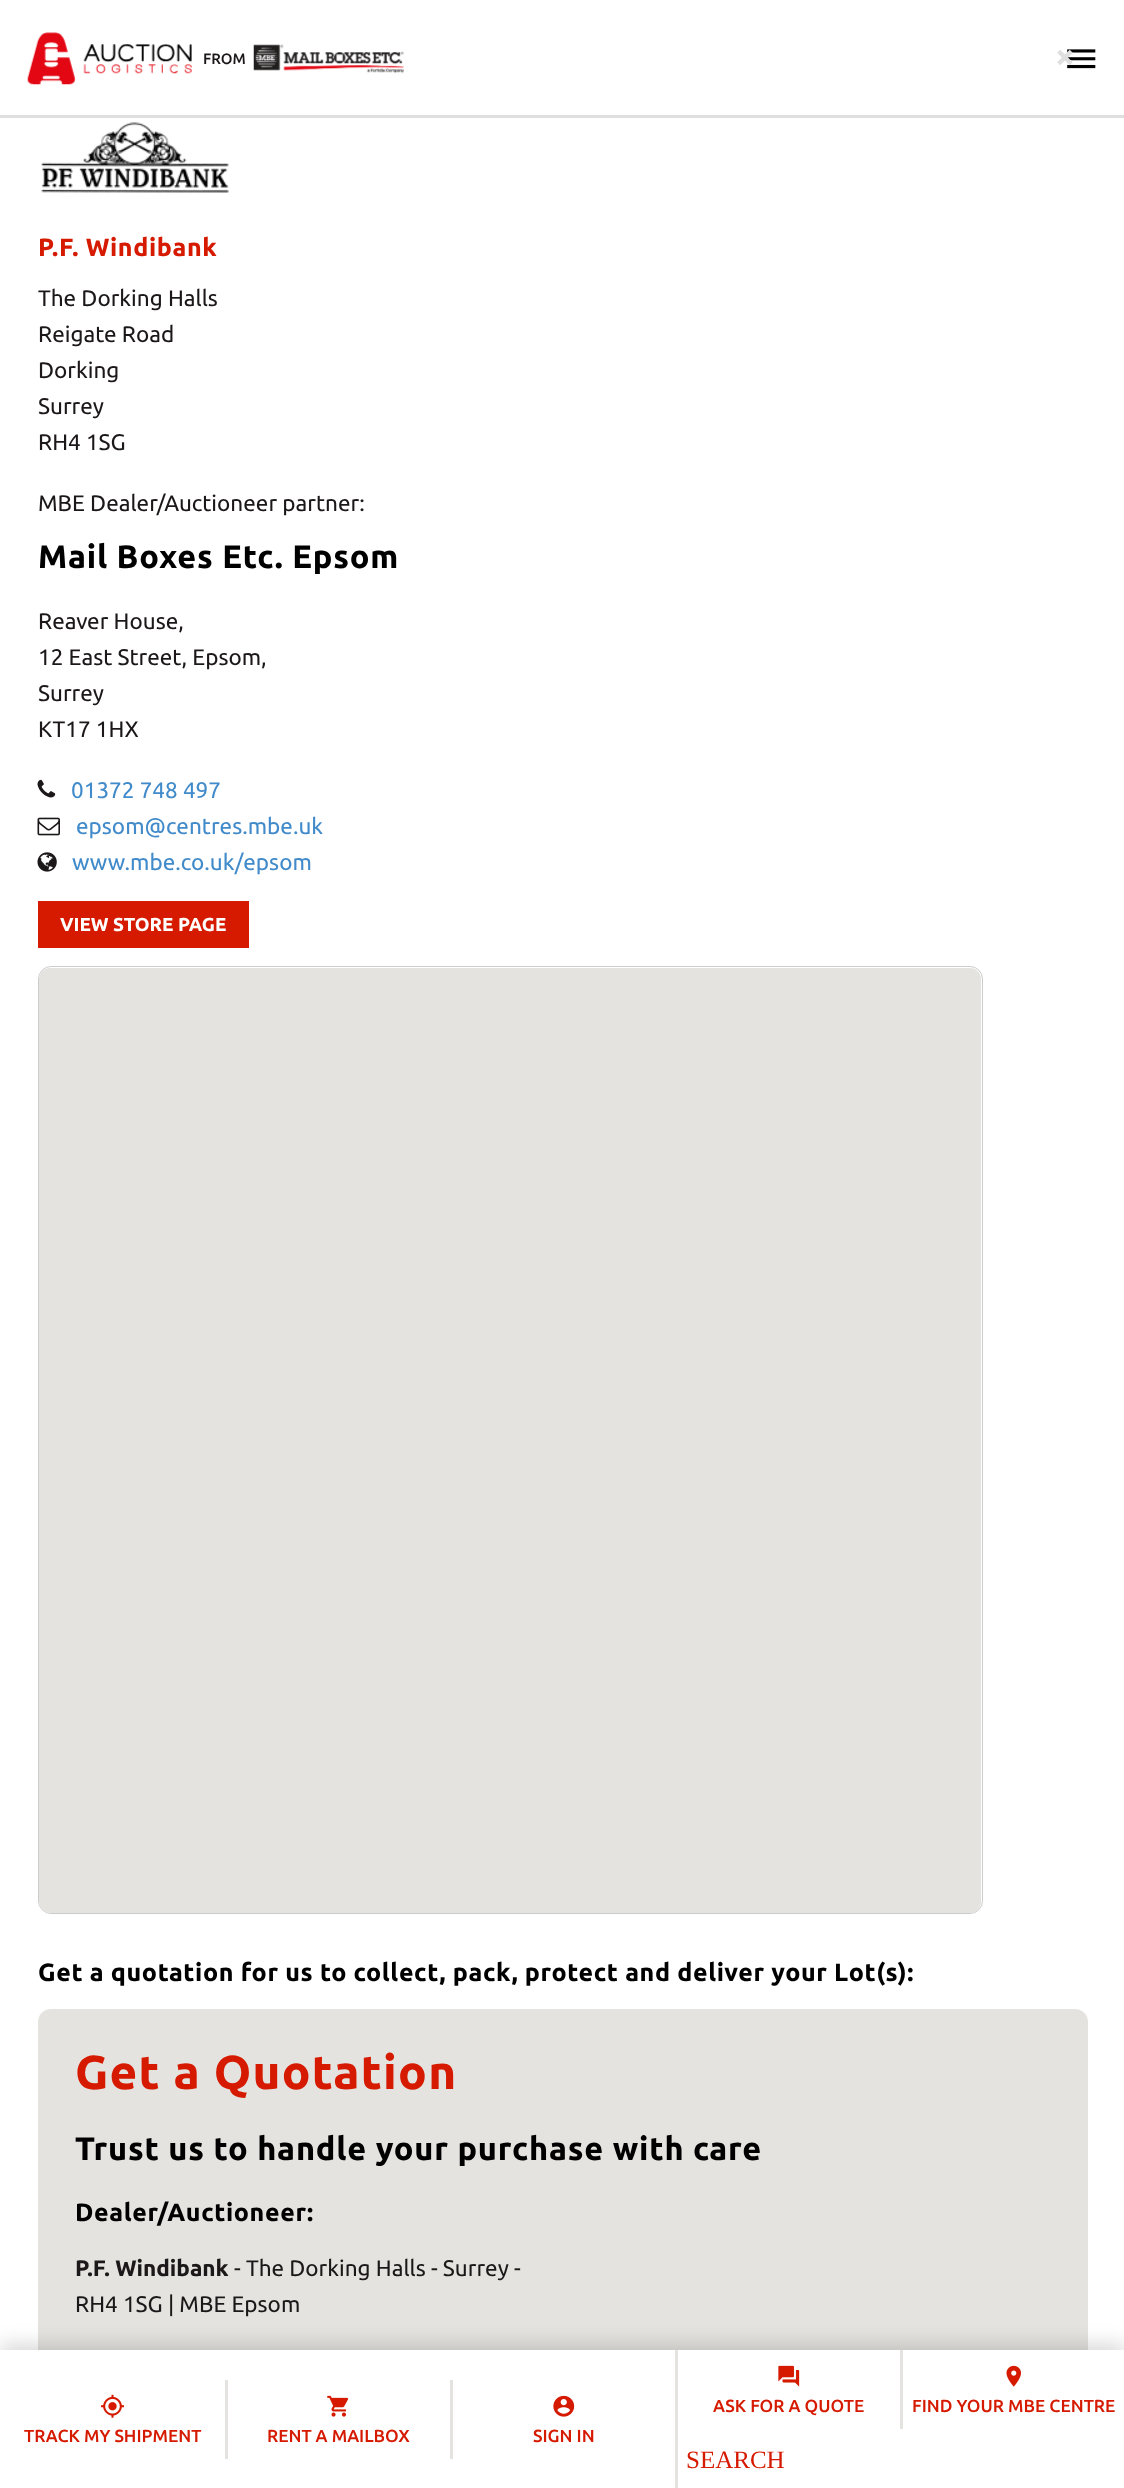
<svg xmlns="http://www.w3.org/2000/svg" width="1124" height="2488">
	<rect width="100%" height="100%" fill="#FFFFFF" />
	<image x="1067" y="49" width="29" height="20" href="assets/img3.png" />
	<text x="1055" y="68" font-family="Ubuntu" font-size="35" font-weight="700" fill="#DFDFDF">×</text>
	<rect x="0" y="115" width="1124" height="3" fill="#DFDFDF" />
	<image x="27" y="32" width="165" height="53" href="assets/img1.png" />
	<text x="203" y="64" font-family="Ubuntu" font-size="15" font-weight="500" fill="#1C1819">FROM</text>
	<image x="253" y="44" width="151" height="30" href="assets/img2.png" />
	<rect x="38" y="2009" width="1050" height="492" rx="13" fill="#E5E3DF" />
	<rect x="0" y="2344" width="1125" height="139" fill="#000000" fill-opacity="0.15" filter="blur(9.5px)" />
	<rect x="0" y="2350" width="1124" height="138" fill="#FFFFFF" />
	<image x="101" y="2394" width="23" height="24" href="assets/img4.png" />
	<text x="24" y="2442" font-family="Ubuntu" font-size="17.5" font-weight="500" fill="#D51A00">TRACK MY SHIPMENT</text>
	<rect x="225" y="2380" width="3" height="79" fill="#E5E3DF" />
	<image x="327" y="2395" width="22" height="22" href="assets/img5.png" />
	<text x="267" y="2442" font-family="Ubuntu" font-size="17.5" font-weight="500" fill="#D51A00">RENT A MAILBOX</text>
	<rect x="450" y="2380" width="3" height="79" fill="#E5E3DF" />
	<image x="553" y="2395" width="22" height="22" href="assets/img6.png" />
	<text x="533" y="2442" font-family="Ubuntu" font-size="17.5" font-weight="500" fill="#D51A00">SIGN IN</text>
	<rect x="675" y="2350" width="3" height="138" fill="#E5E3DF" />
	<image x="778" y="2365" width="22" height="22" href="assets/img7.png" />
	<text x="713" y="2412" font-family="Ubuntu" font-size="17.5" font-weight="500" fill="#D51A00">ASK FOR A QUOTE</text>
	<rect x="900" y="2350" width="3" height="79" fill="#E5E3DF" />
	<image x="1006" y="2365" width="15" height="22" href="assets/img8.png" />
	<text x="912" y="2412" font-family="Ubuntu" font-size="17.5" font-weight="500" fill="#D51A00">FIND YOUR MBE CENTRE</text>
	<text x="686" y="2468" font-family="Liberation Serif" font-size="25" fill="#D51A00">SEARCH</text>
	<image x="41" y="122" width="188" height="71" href="assets/img9.png" />
	<text x="38" y="256" font-family="Ubuntu" font-size="25" font-weight="700" letter-spacing="0.62" fill="#D51A00">P.F. Windibank</text>
	<g font-family="Ubuntu" font-size="22.5" fill="#1C1819">
		<text x="38" y="306">The Dorking Halls</text>
		<text x="38" y="342">Reigate Road</text>
		<text x="38" y="378">Dorking</text>
		<text x="38" y="414">Surrey</text>
		<text x="38" y="450">RH4 1SG</text>
		<text x="38" y="511">MBE Dealer/Auctioneer partner:</text>
	</g>
	<text x="38" y="568" font-family="Ubuntu" font-size="32.5" font-weight="700" letter-spacing="0.8" fill="#000000">Mail Boxes Etc. Epsom</text>
	<g font-family="Ubuntu" font-size="22.5" fill="#1C1819">
		<text x="38" y="629">Reaver House,</text>
		<text x="38" y="665">12 East Street, Epsom,</text>
		<text x="38" y="701">Surrey</text>
		<text x="38" y="737">KT17 1HX</text>
	</g>
	<image x="37" y="779" width="19" height="19" href="assets/img10.png" />
	<text x="71" y="798" font-family="Ubuntu" font-size="22.5" fill="#428BCA">01372 748 497</text>
	<image x="37" y="817" width="23" height="19" href="assets/img11.png" />
	<text x="76" y="834" font-family="Ubuntu" font-size="22.5" fill="#428BCA">epsom@centres.mbe.uk</text>
	<image x="37" y="852" width="20" height="20" href="assets/img12.png" />
	<text x="72" y="870" font-family="Ubuntu" font-size="22.5" fill="#428BCA">www.mbe.co.uk/epsom</text>
	<rect x="38" y="901" width="211" height="47" fill="#D51A00" />
	<text x="60" y="931" font-family="Ubuntu" font-size="18.75" font-weight="700" fill="#FFFFFF">VIEW STORE PAGE</text>
	<rect x="38.5" y="966.5" width="944" height="947" rx="12.5" fill="none" stroke="#CCCCCC" />
	<rect x="39" y="968" width="942" height="945" rx="11" fill="#E5E3DF" />
	<text x="38" y="1981" font-family="Ubuntu" font-size="25" font-weight="700" letter-spacing="0.62" fill="#000000">Get a quotation for us to collect, pack, protect and deliver your Lot(s):</text>
	<text x="75" y="2089" font-family="Ubuntu" font-size="47.5" font-weight="700" letter-spacing="1.25" fill="#D51A00">Get a Quotation</text>
	<text x="75" y="2160" font-family="Ubuntu" font-size="32.5" font-weight="700" letter-spacing="0.8" fill="#000000">Trust us to handle your purchase with care</text>
	<text x="75" y="2221" font-family="Ubuntu" font-size="25" font-weight="700" letter-spacing="0.62" fill="#000000">Dealer/Auctioneer:</text>
	<text x="75" y="2276" font-family="Ubuntu" font-size="22.5" font-weight="700" fill="#1C1819">P.F. Windibank</text>
	<g font-family="Ubuntu" font-size="22.5" fill="#1C1819">
		<text x="234" y="2276">- The Dorking Halls - Surrey -</text>
		<text x="75" y="2312">RH4 1SG | MBE Epsom</text>
	</g>
</svg>
